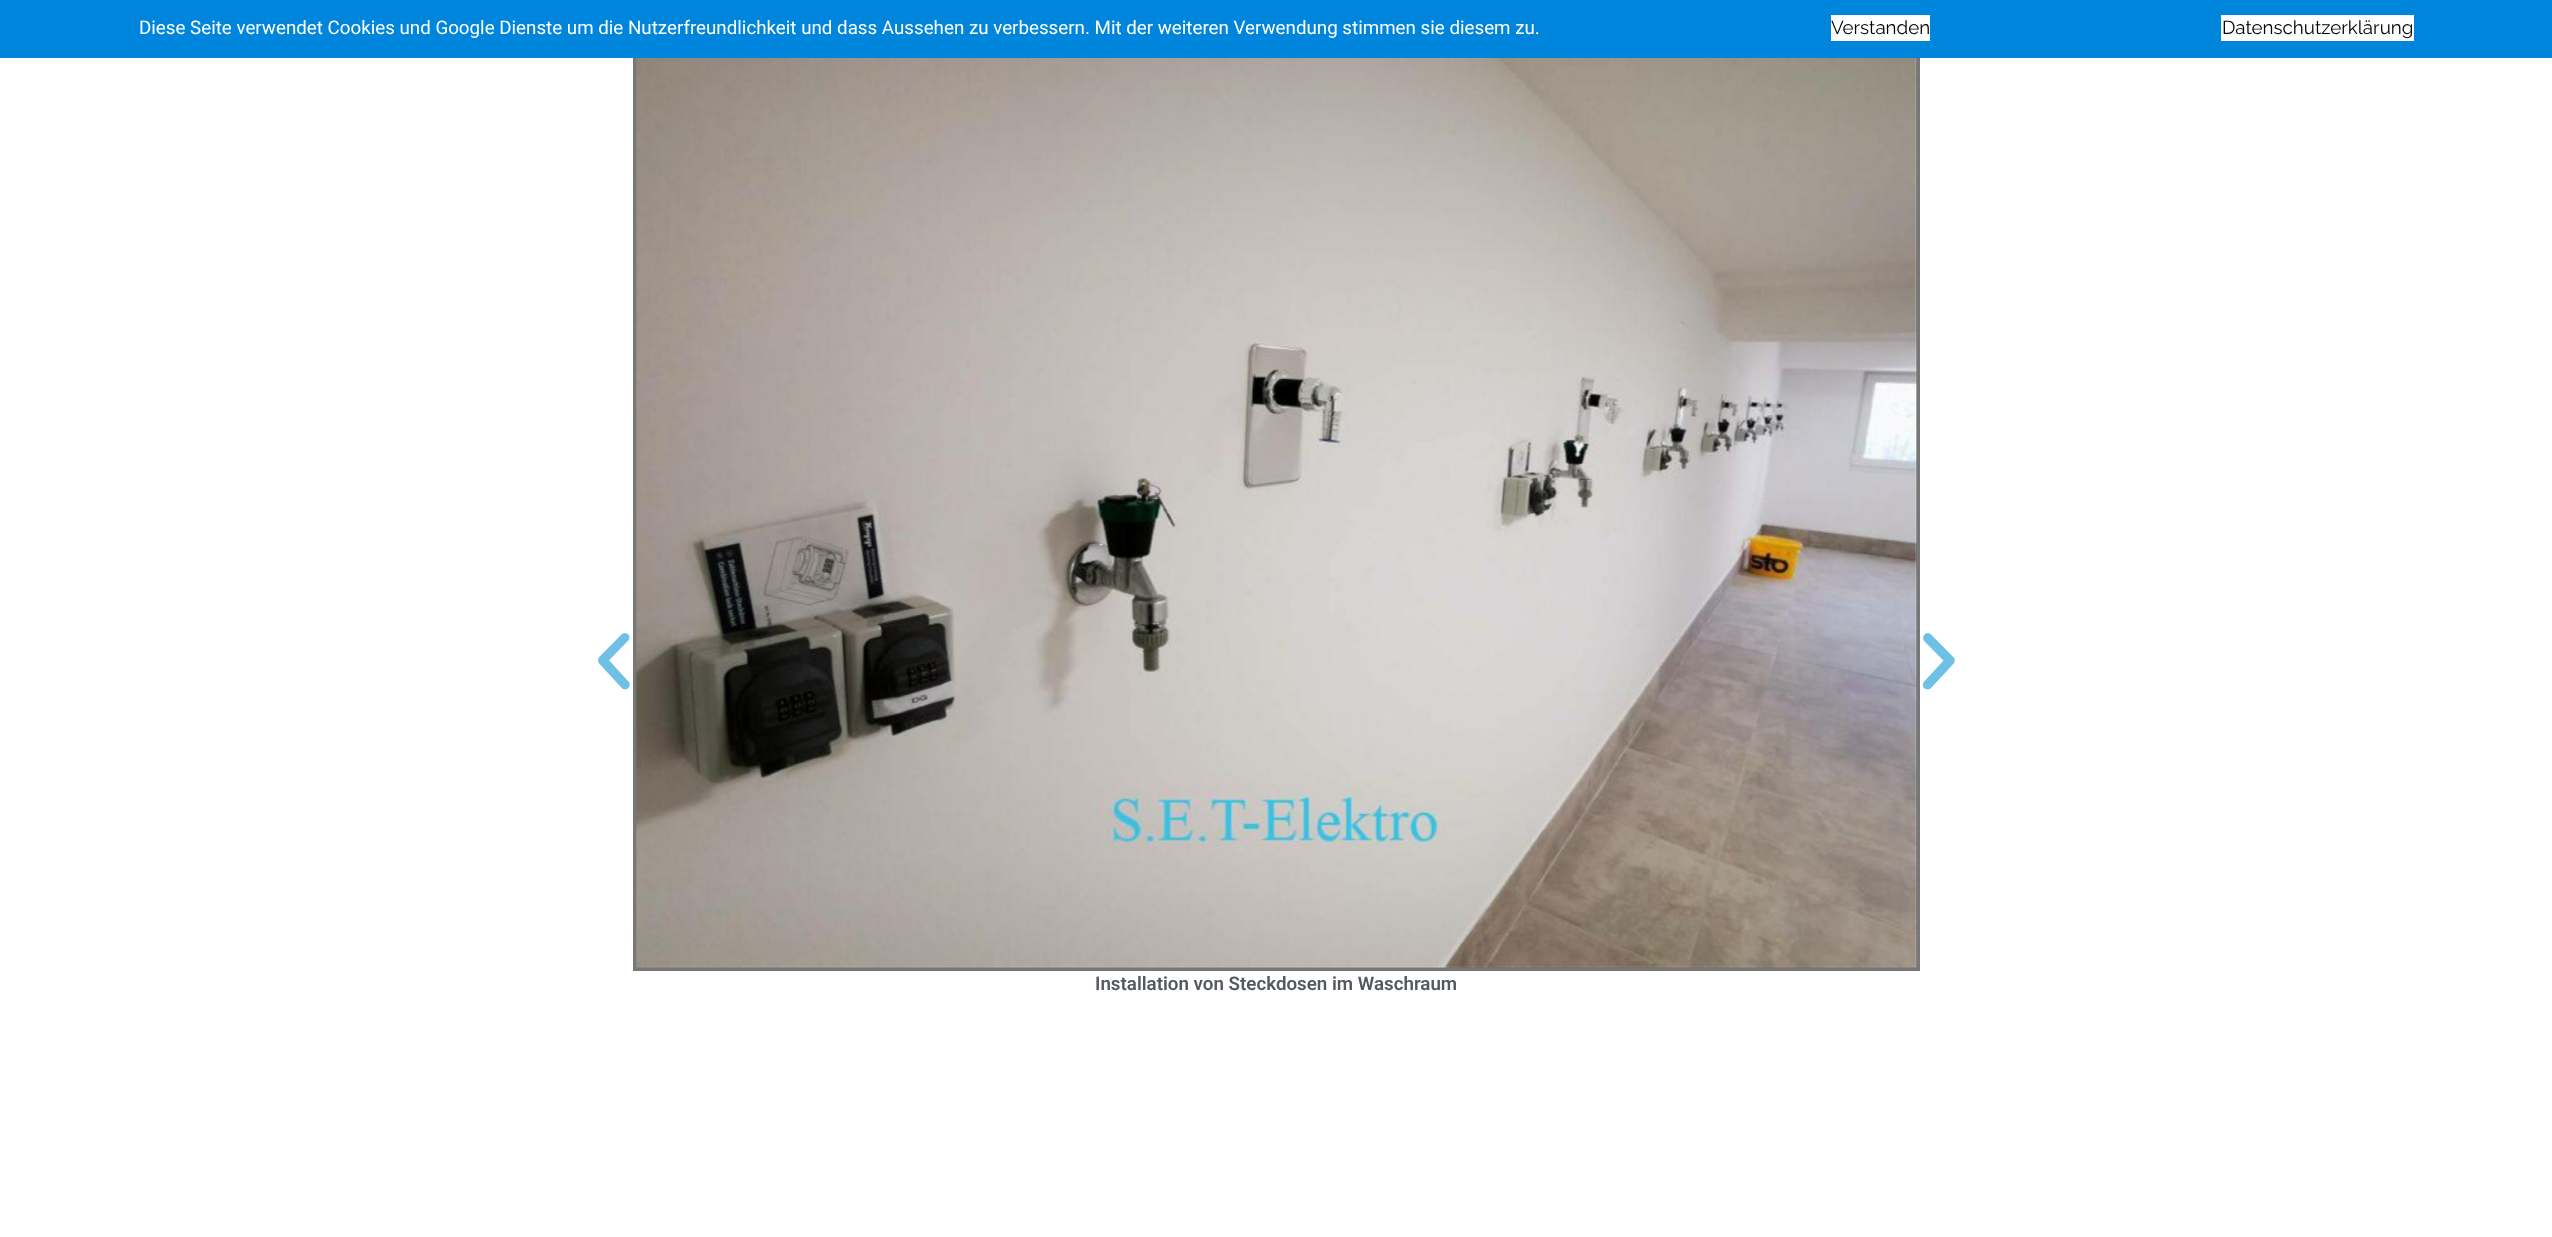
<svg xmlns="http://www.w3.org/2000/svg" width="2552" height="1237">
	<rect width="100%" height="100%" fill="#FFFFFF" />
	<rect x="635" y="6" width="1283" height="963" fill="none" stroke="#777777" stroke-width="4" />
	<rect x="0" y="0" width="2552" height="58" fill="#0085DD" />
	<text x="139" y="34" font-family="Roboto" font-size="18.75" fill="#FFFFFF">Diese Seite verwendet Cookies und Google Dienste um die Nutzerfreundlichkeit und dass Aussehen zu verbessern. Mit der weiteren Verwendung stimmen sie diesem zu.</text>
	<rect x="1831" y="15" width="99" height="26" fill="#FFFFFF" />
	<text x="1831" y="34" font-family="Raleway" font-size="18.75" fill="#000000">Verstanden</text>
	<rect x="2221" y="15" width="193" height="26" fill="#FFFFFF" />
	<text x="2222" y="34" font-family="Raleway" font-size="18.75" fill="#000000">Datenschutzerklärung</text>
	<image x="598" y="633" width="32" height="57" href="assets/img1.png" />
	<image x="1922" y="633" width="33" height="57" href="assets/img2.png" />
	<image x="635" y="58" width="1282" height="910" href="assets/img3.png" />
	<text x="1095" y="990" font-family="Roboto" font-size="18.75" font-weight="600" fill="#54595F">Installation von Steckdosen im Waschraum</text>
</svg>
